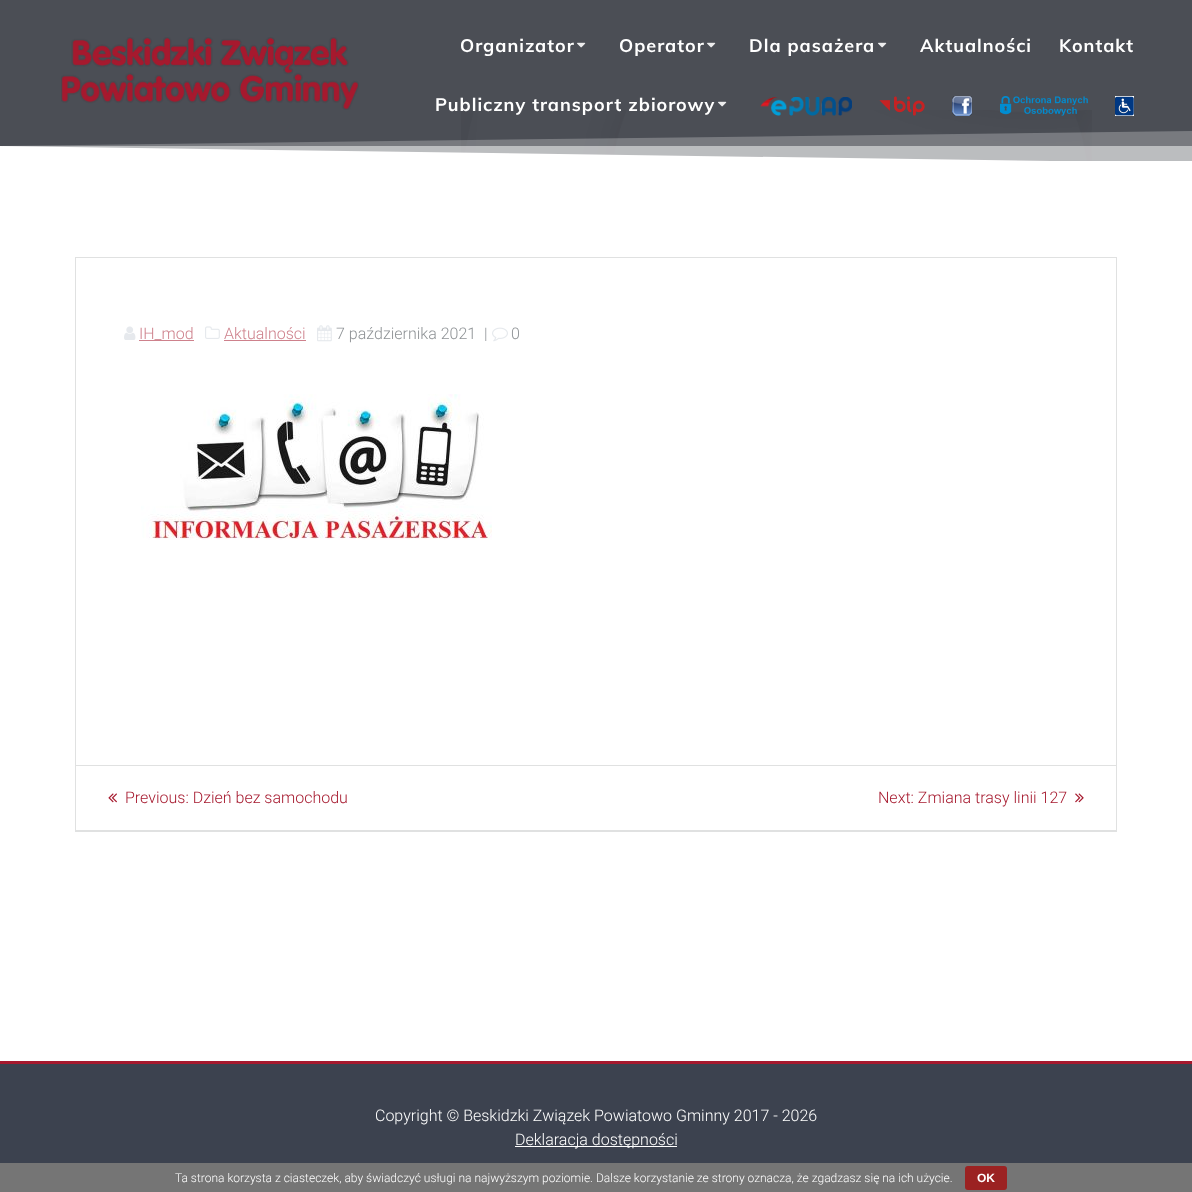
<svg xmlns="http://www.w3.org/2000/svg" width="1192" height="1192">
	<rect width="100%" height="100%" fill="#FFFFFF" />
	<rect x="0" y="0" width="1192" height="161" fill="#4B4E55" />
	<image x="61" y="37" width="298" height="73" href="assets/img1.png" />
	<text x="460" y="52" font-family="Muli" font-size="18" font-weight="700" letter-spacing="1" fill="#FFFFFF">Organizator</text>
	<image x="577" y="42" width="9" height="6" href="assets/img2.png" />
	<text x="619" y="52" font-family="Muli" font-size="18" font-weight="700" letter-spacing="1" fill="#FFFFFF">Operator</text>
	<image x="707" y="42" width="9" height="6" href="assets/img2.png" />
	<text x="749" y="52" font-family="Muli" font-size="18" font-weight="700" letter-spacing="1" fill="#FFFFFF">Dla pasażera</text>
	<image x="878" y="42" width="9" height="6" href="assets/img2.png" />
	<g font-family="Muli" font-size="18" font-weight="700" letter-spacing="1" fill="#FFFFFF">
		<text x="920" y="52">Aktualności</text>
		<text x="1059" y="52">Kontakt</text>
	</g>
	<image x="461" y="110" width="631" height="51" href="assets/img8.png" />
	<text x="435" y="111" font-family="Muli" font-size="18" font-weight="700" letter-spacing="1" fill="#FFFFFF">Publiczny transport zbiorowy</text>
	<image x="718" y="101" width="9" height="6" href="assets/img2.png" />
	<image x="760" y="97" width="92" height="19" href="assets/img3.png" />
	<image x="879" y="96" width="46" height="20" href="assets/img4.png" />
	<image x="952" y="96" width="20" height="20" href="assets/img5.png" />
	<image x="1000" y="96" width="88" height="20" href="assets/img6.png" />
	<image x="1115" y="96" width="19" height="20" href="assets/img7.png" />
	<path d="M1192 163H-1V146Z" fill="#FFFFFF" />
	<rect x="3" y="146" width="1189" height="15" fill="#FFFFFF" fill-opacity="0.5" />
	<path d="M-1 163H1192V131L-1 146Z" fill="#FFFFFF" fill-opacity="0.25" />
	<rect x="75.5" y="257.5" width="1041" height="574" fill="none" stroke="#E0E1E1" />
	<image x="124" y="326" width="12" height="14" href="assets/img9.png" />
	<text x="139" y="339" font-family="Roboto" font-size="16" font-weight="300" fill="#CE818C">IH_mod</text>
	<rect x="139" y="340" width="55" height="1" fill="#CE818C" />
	<image x="205" y="326" width="15" height="13" href="assets/img10.png" />
	<text x="224" y="339" font-family="Roboto" font-size="16" font-weight="300" fill="#CE818C">Aktualności</text>
	<rect x="224" y="340" width="82" height="1" fill="#CE818C" />
	<image x="317" y="325" width="15" height="17" href="assets/img11.png" />
	<g font-family="Roboto" font-size="16" font-weight="300" fill="#8F9396">
		<text x="336" y="339">7 października 2021</text>
		<text x="484" y="339">|</text>
	</g>
	<image x="492" y="327" width="16" height="15" href="assets/img12.png" />
	<text x="511" y="339" font-family="Roboto" font-size="16" font-weight="300" fill="#8F9396">0</text>
	<image x="141" y="394" width="351" height="146" href="assets/img13.png" />
	<rect x="76" y="765" width="1040" height="1" fill="#E0E1E1" />
	<rect x="76" y="830" width="1040" height="1" fill="#E0E1E1" />
	<image x="108" y="793" width="9" height="10" href="assets/img14.png" />
	<g font-family="Roboto" font-size="16" font-weight="300" fill="#A6192E">
		<text x="125" y="803">Previous: Dzień bez samochodu</text>
		<text x="878" y="803">Next: Zmiana trasy linii 127</text>
	</g>
	<image x="1075" y="793" width="9" height="10" href="assets/img15.png" />
	<rect x="0" y="1064" width="1192" height="99" fill="#3C424F" />
	<rect x="0" y="1061" width="1192" height="3" fill="#A6192E" />
	<text x="375" y="1121" font-family="Roboto" font-size="16" font-weight="300" fill="#FFFFFF">Copyright © Beskidzki Związek Powiatowo Gminny 2017 - 2026</text>
	<rect x="515" y="1146" width="162" height="1" fill="#FFFFFF" />
	<text x="515" y="1145" font-family="Roboto" font-size="16" font-weight="300" fill="#FFFFFF">Deklaracja dostępności</text>
	<rect x="0" y="1163" width="1192" height="29" fill="#757575" />
	<text x="175" y="1182" font-family="Roboto" font-size="12" font-weight="300" fill="#FFFFFF">Ta strona korzysta z ciasteczek, aby świadczyć usługi na najwyższym poziomie. Dalsze korzystanie ze strony oznacza, że zgadzasz się na ich użycie.</text>
	<rect x="965" y="1166" width="42" height="24" rx="3" fill="#9B2222" />
	<text x="977" y="1182" font-family="Liberation Sans" font-size="12" font-weight="700" fill="#FFFFFF">OK</text>
</svg>
